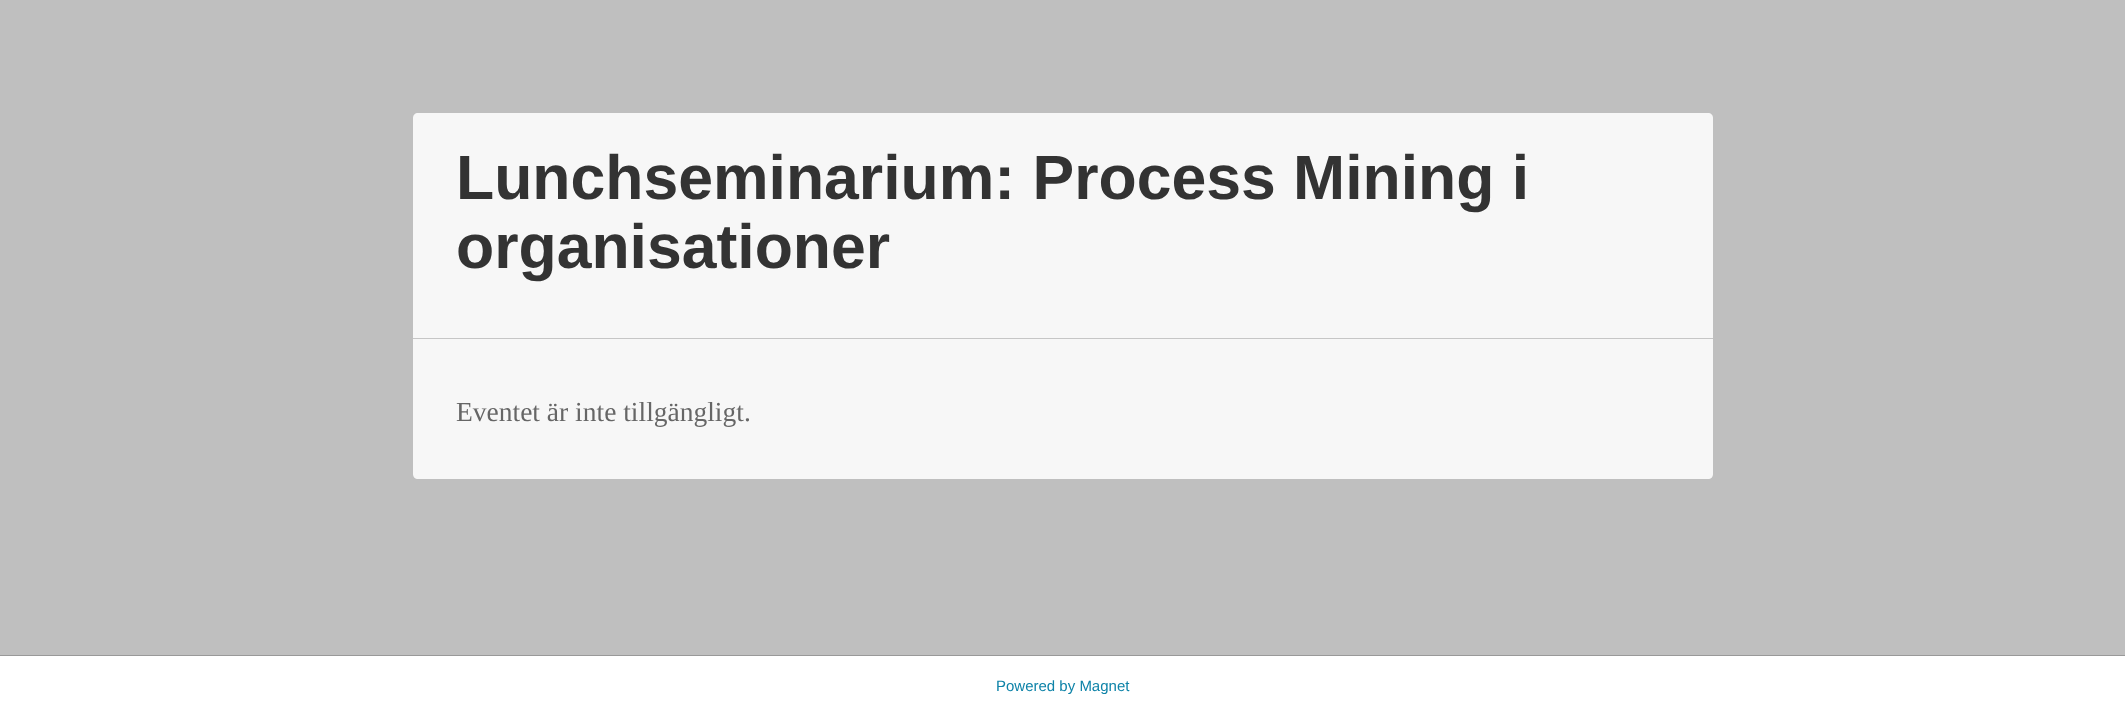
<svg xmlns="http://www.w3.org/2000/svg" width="2125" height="714">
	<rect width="100%" height="100%" fill="#BFBFBF" />
	<path d="M418 113H1708C1711 113 1713 115 1713 118V339H413V118C413 115 415 113 418 113Z" fill="#F7F7F7" />
	<rect x="413" y="338" width="1300" height="1" fill="#C6C6C6" />
	<g font-family="Liberation Sans" font-size="62.5" font-weight="700" fill="#333333">
		<text x="456" y="199">Lunchseminarium: Process Mining i</text>
		<text x="456" y="268">organisationer</text>
	</g>
	<path d="M413 339H1713V474C1713 477 1711 479 1708 479H418C415 479 413 477 413 474Z" fill="#F7F7F7" />
	<text x="456" y="421" font-family="Liberation Serif" font-size="27.5" fill="#666666">Eventet är inte tillgängligt.</text>
	<rect x="0" y="656" width="2125" height="58" fill="#FFFFFF" />
	<rect x="0" y="655" width="2125" height="1" fill="#999999" />
	<text x="996" y="691" font-family="Liberation Sans" font-size="15" fill="#0E83A8">Powered by Magnet</text>
</svg>
